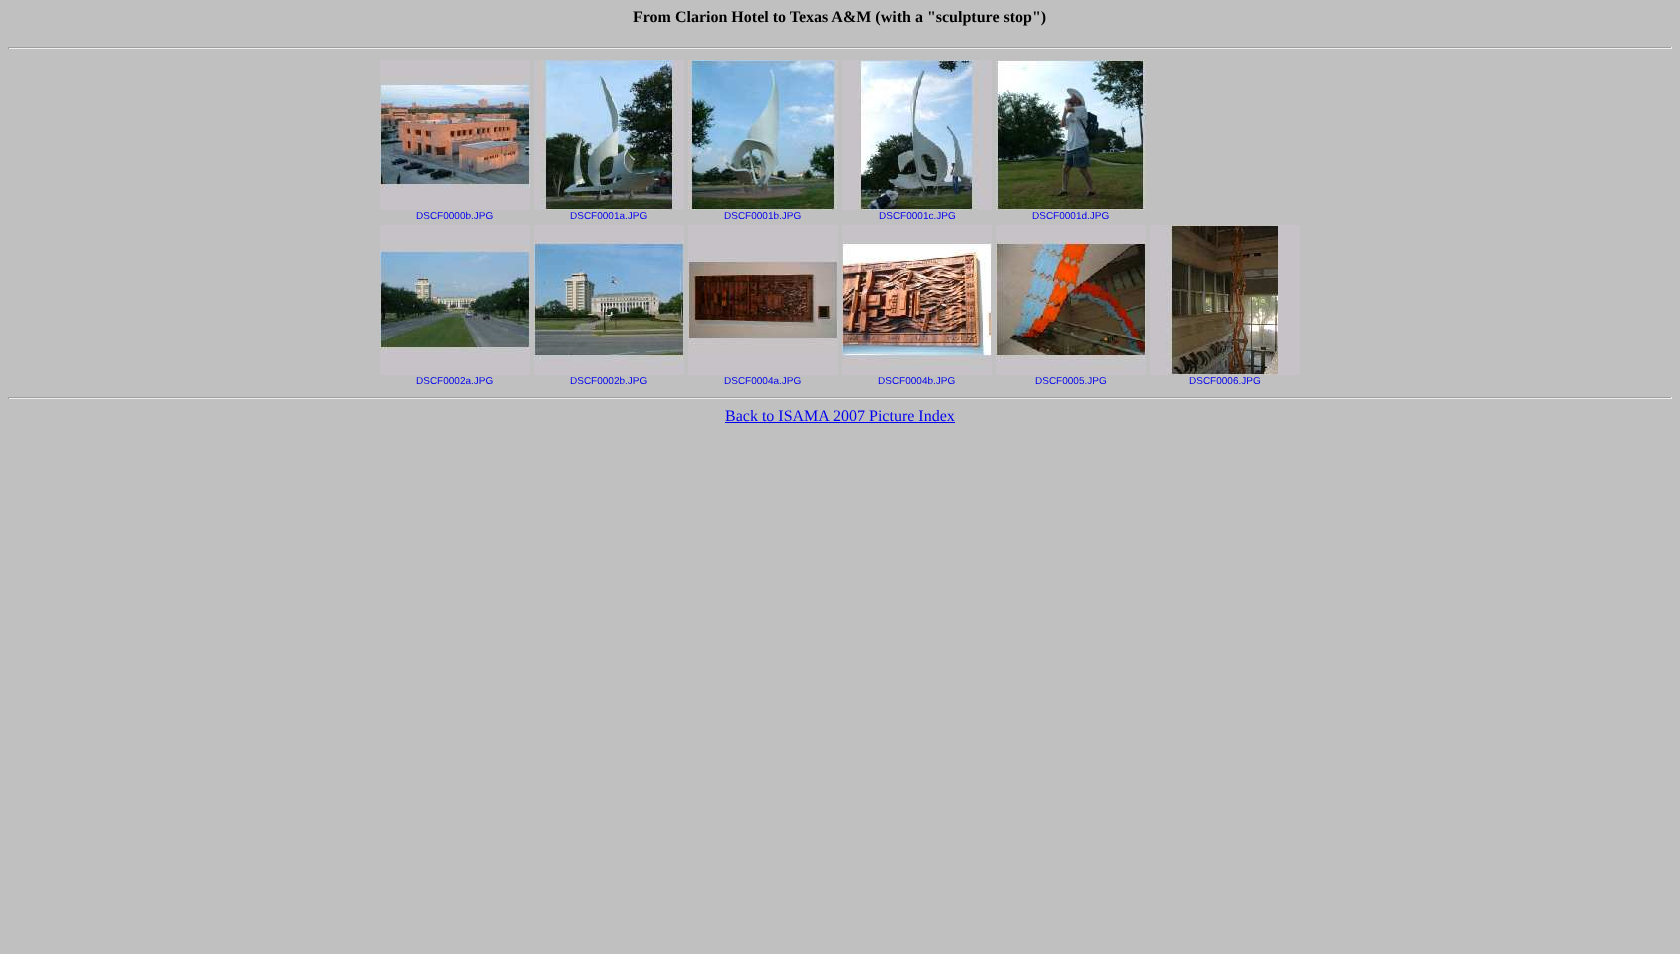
<svg xmlns="http://www.w3.org/2000/svg" width="1680" height="954">
	<rect width="100%" height="100%" fill="#C0C0C0" />
	<text x="633" y="22" font-family="Liberation Serif" font-size="16" font-weight="700" fill="#000000">From Clarion Hotel to Texas A&amp;M (with a "sculpture stop")</text>
	<rect x="8" y="47" width="1664" height="1" fill="#9F9F9F" />
	<rect x="1671" y="47" width="1" height="2" fill="#EEEEEE" />
	<rect x="8" y="48" width="1664" height="1" fill="#EEEEEE" />
	<rect x="8" y="47" width="1" height="2" fill="#9F9F9F" />
	<image x="380" y="60" width="150" height="150" href="assets/img1.png" />
	<text x="416" y="219" font-family="Liberation Sans" font-size="10" fill="#0000EE">DSCF0000b.JPG</text>
	<image x="534" y="60" width="150" height="150" href="assets/img2.png" />
	<text x="570" y="219" font-family="Liberation Sans" font-size="10" fill="#0000EE">DSCF0001a.JPG</text>
	<image x="688" y="60" width="150" height="150" href="assets/img3.png" />
	<text x="724" y="219" font-family="Liberation Sans" font-size="10" fill="#0000EE">DSCF0001b.JPG</text>
	<image x="842" y="60" width="150" height="150" href="assets/img4.png" />
	<text x="879" y="219" font-family="Liberation Sans" font-size="10" fill="#0000EE">DSCF0001c.JPG</text>
	<image x="996" y="60" width="150" height="150" href="assets/img5.png" />
	<text x="1032" y="219" font-family="Liberation Sans" font-size="10" fill="#0000EE">DSCF0001d.JPG</text>
	<image x="380" y="225" width="150" height="150" href="assets/img6.png" />
	<text x="416" y="384" font-family="Liberation Sans" font-size="10" fill="#0000EE">DSCF0002a.JPG</text>
	<image x="534" y="225" width="150" height="150" href="assets/img7.png" />
	<text x="570" y="384" font-family="Liberation Sans" font-size="10" fill="#0000EE">DSCF0002b.JPG</text>
	<image x="688" y="225" width="150" height="150" href="assets/img8.png" />
	<text x="724" y="384" font-family="Liberation Sans" font-size="10" fill="#0000EE">DSCF0004a.JPG</text>
	<image x="842" y="225" width="150" height="150" href="assets/img9.png" />
	<text x="878" y="384" font-family="Liberation Sans" font-size="10" fill="#0000EE">DSCF0004b.JPG</text>
	<image x="996" y="225" width="150" height="150" href="assets/img10.png" />
	<text x="1035" y="384" font-family="Liberation Sans" font-size="10" fill="#0000EE">DSCF0005.JPG</text>
	<image x="1150" y="225" width="150" height="150" href="assets/img11.png" />
	<text x="1189" y="384" font-family="Liberation Sans" font-size="10" fill="#0000EE">DSCF0006.JPG</text>
	<rect x="8" y="397" width="1664" height="1" fill="#9F9F9F" />
	<rect x="1671" y="397" width="1" height="2" fill="#EEEEEE" />
	<rect x="8" y="398" width="1664" height="1" fill="#EEEEEE" />
	<rect x="8" y="397" width="1" height="2" fill="#9F9F9F" />
	<text x="725" y="421" font-family="Liberation Serif" font-size="16" fill="#0000EE">Back to ISAMA 2007 Picture Index</text>
	<rect x="725" y="422" width="230" height="1" fill="#0000EE" />
</svg>
